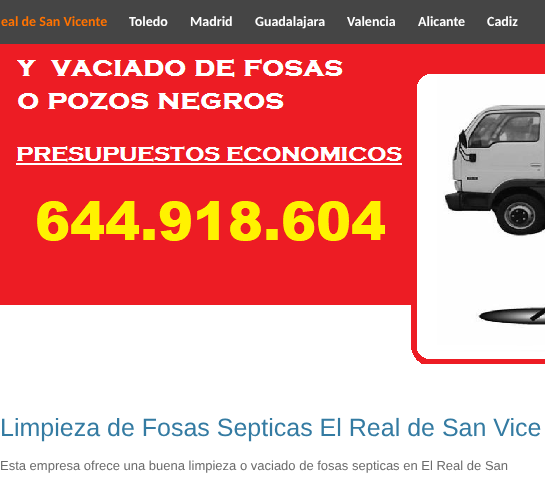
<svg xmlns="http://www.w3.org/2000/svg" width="545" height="480">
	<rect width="100%" height="100%" fill="#FFFFFF" />
	<image x="0" y="0" width="545" height="364" href="assets/img1.png" />
	<rect x="0" y="3" width="545" height="41" fill="#454545" />
	<text x="1" y="26" font-family="Carlito" font-size="14" font-weight="700" fill="#FF7200">eal de San Vicente</text>
	<g font-family="Carlito" font-size="14" font-weight="700" fill="#FFFFFF">
		<text x="129" y="26">Toledo</text>
		<text x="190" y="26">Madrid</text>
		<text x="255" y="26">Guadalajara</text>
		<text x="347" y="26">Valencia</text>
		<text x="418" y="26">Alicante</text>
		<text x="487" y="26">Cadiz</text>
	</g>
	<text x="0" y="436" font-family="Liberation Sans" font-size="25" fill="#347BA2">Limpieza de Fosas Septicas El Real de San Vice</text>
	<text x="0" y="470" font-family="Liberation Sans" font-size="13" fill="#6B6B6B">Esta empresa ofrece una buena limpieza o vaciado de fosas septicas en El Real de San</text>
</svg>
